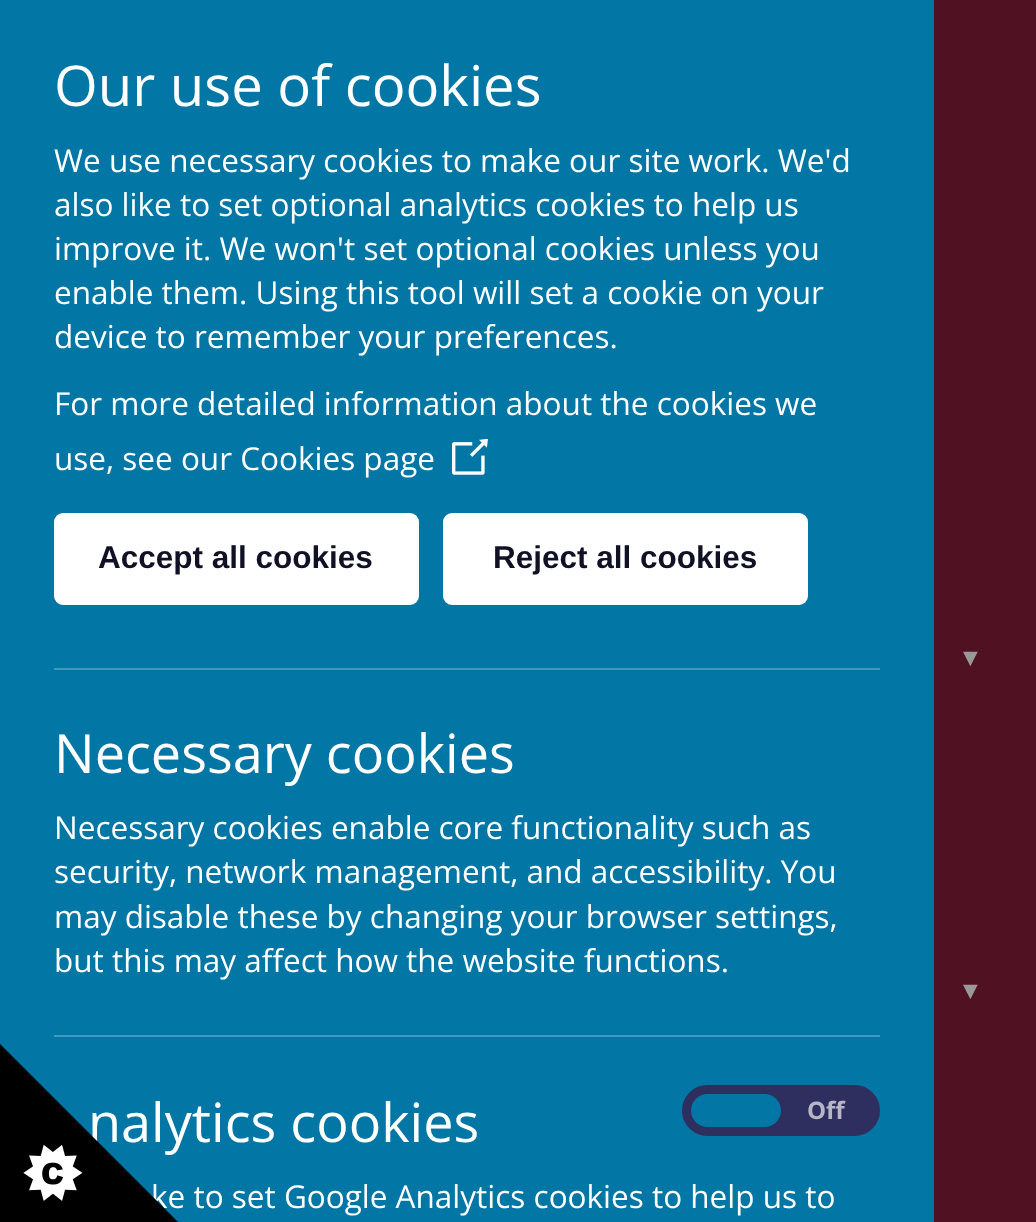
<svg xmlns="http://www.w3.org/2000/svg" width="1036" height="1222">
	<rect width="100%" height="100%" fill="#501123" />
	<rect x="0" y="0" width="934" height="1222" fill="#0276A5" />
	<text x="54" y="106" font-family="Open Sans" font-size="56.25" fill="#FFFFFF">Our use of cookies</text>
	<g font-family="Open Sans" font-size="31.5" fill="#FFFFFF">
		<text x="54" y="172">We use necessary cookies to make our site work. We'd</text>
		<text x="54" y="216">also like to set optional analytics cookies to help us</text>
		<text x="54" y="260">improve it. We won't set optional cookies unless you</text>
		<text x="54" y="304">enable them. Using this tool will set a cookie on your</text>
		<text x="54" y="348">device to remember your preferences.</text>
		<text x="54" y="415">For more detailed information about the cookies we</text>
		<text x="54" y="470">use, see our Cookies page</text>
	</g>
	<image x="452" y="439" width="36" height="36" href="assets/img1.png" />
	<rect x="56.5" y="515.5" width="360" height="87" rx="6.5" fill="#FFFFFF" stroke="#FFFFFF" stroke-width="5" />
	<text x="98" y="568" font-family="Liberation Sans" font-size="31.5" font-weight="700" fill="#111125">Accept all cookies</text>
	<rect x="445.5" y="515.5" width="360" height="87" rx="6.5" fill="#FFFFFF" stroke="#FFFFFF" stroke-width="5" />
	<text x="493" y="568" font-family="Liberation Sans" font-size="31.5" font-weight="700" fill="#111125">Reject all cookies</text>
	<rect x="54" y="668" width="826" height="2" fill="#4198BC" />
	<text x="54" y="773" font-family="Open Sans" font-size="54" fill="#FFFFFF">Necessary cookies</text>
	<g font-family="Open Sans" font-size="31.5" fill="#FFFFFF">
		<text x="54" y="839">Necessary cookies enable core functionality such as</text>
		<text x="54" y="883">security, network management, and accessibility. You</text>
		<text x="54" y="928">may disable these by changing your browser settings,</text>
		<text x="54" y="972">but this may affect how the website functions.</text>
	</g>
	<rect x="54" y="1035" width="826" height="2" fill="#4198BC" />
	<text x="88" y="1142" font-family="Open Sans" font-size="54" fill="#FFFFFF">nalytics cookies</text>
	<rect x="686.5" y="1089.5" width="189" height="42" rx="21" fill="#2F2F5F" stroke="#2F2F5F" stroke-width="9" />
	<rect x="691" y="1094" width="90" height="33" rx="16.5" fill="#0276A5" />
	<text x="807" y="1119" font-family="Open Sans" font-size="24" font-weight="700" fill="#B6B6C7">Off</text>
	<text x="151" y="1208" font-family="Open Sans" font-size="31.5" fill="#FFFFFF">ke to set Google Analytics cookies to help us to</text>
	<image x="0" y="1044" width="178" height="178" href="assets/img2.png" />
	<g font-family="Liberation Sans" font-size="25" fill="#999999">
		<text x="958" y="666">▼</text>
		<text x="958" y="999">▼</text>
	</g>
</svg>
